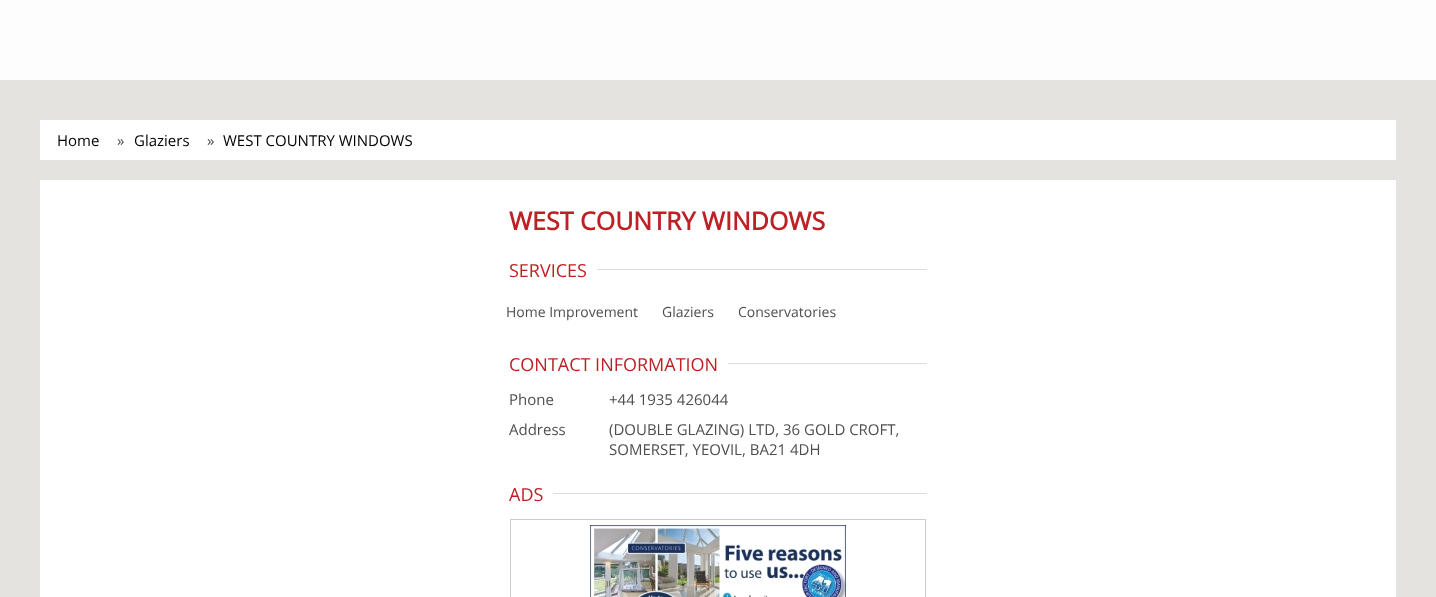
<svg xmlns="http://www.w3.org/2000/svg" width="1436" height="597">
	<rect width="100%" height="100%" fill="#E5E3DF" />
	<rect x="0" y="0" width="1436" height="80" fill="#FDFDFD" />
	<rect x="40" y="120" width="1356" height="40" fill="#FFFFFF" />
	<text x="57" y="146" font-family="Open Sans" font-size="15" fill="#000000">Home</text>
	<text x="117" y="146" font-family="Open Sans" font-size="15" fill="#4E4E4E">»</text>
	<text x="134" y="146" font-family="Open Sans" font-size="15" fill="#000000">Glaziers</text>
	<text x="207" y="146" font-family="Open Sans" font-size="15" fill="#4E4E4E">»</text>
	<text x="223" y="146" font-family="Open Sans" font-size="15" fill="#000000">WEST COUNTRY WINDOWS</text>
	<rect x="40" y="180" width="1356" height="417" fill="#FFFFFF" />
	<text x="509" y="230" font-family="Open Sans" font-size="25" font-weight="700" fill="#BD2125">WEST COUNTRY WINDOWS</text>
	<text x="509" y="277" font-family="Open Sans" font-size="18" fill="#BD2125">SERVICES</text>
	<rect x="597" y="269" width="330" height="1" fill="#DCDCDC" />
	<g font-family="Open Sans" font-size="14" fill="#4E4E4E">
		<text x="506" y="317">Home Improvement</text>
		<text x="662" y="317">Glaziers</text>
		<text x="738" y="317">Conservatories</text>
	</g>
	<text x="509" y="371" font-family="Open Sans" font-size="18" fill="#BD2125">CONTACT INFORMATION</text>
	<rect x="728" y="363" width="199" height="1" fill="#DCDCDC" />
	<g font-family="Open Sans" font-size="15" fill="#4E4E4E">
		<text x="509" y="405">Phone</text>
		<text x="609" y="405">+44 1935 426044</text>
		<text x="509" y="435">Address</text>
		<text x="609" y="435">(DOUBLE GLAZING) LTD, 36 GOLD CROFT,</text>
		<text x="609" y="455">SOMERSET, YEOVIL, BA21 4DH</text>
	</g>
	<text x="509" y="501" font-family="Open Sans" font-size="18" fill="#BD2125">ADS</text>
	<rect x="553" y="493" width="374" height="1" fill="#DCDCDC" />
	<rect x="510.5" y="519.5" width="415" height="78" fill="none" stroke="#CCCCCC" />
	<image x="590" y="525" width="256" height="72" href="assets/img1.png" />
</svg>
